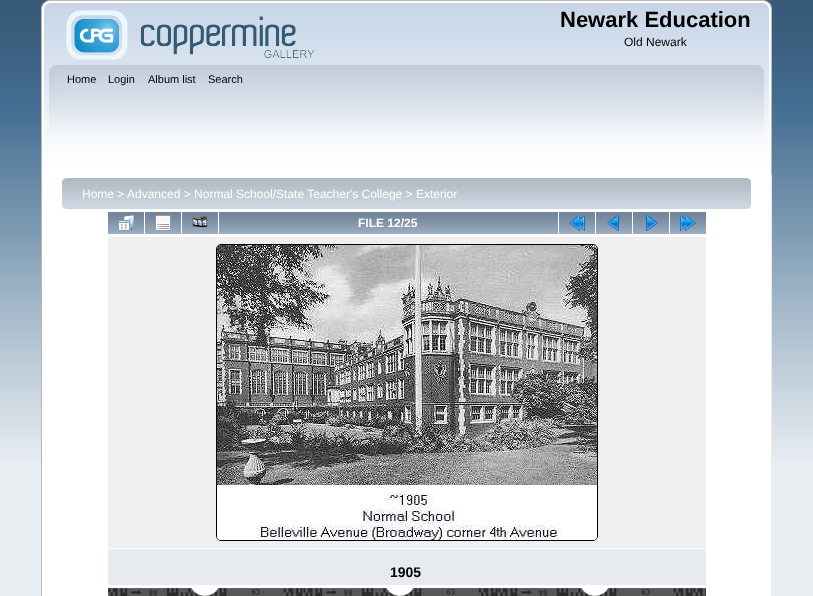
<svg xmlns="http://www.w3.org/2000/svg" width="813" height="596">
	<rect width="100%" height="100%" fill="#E9EEF2" />
	<image x="0" y="0" width="813" height="462" href="assets/img1.png" />
	<image x="41" y="0" width="723" height="65" href="assets/img2.png" />
	<image x="764" y="0" width="8" height="65" href="assets/img3.png" />
	<image x="66" y="10" width="248" height="50" href="assets/img4.png" />
	<text x="560" y="27" font-family="Liberation Sans" font-size="22" font-weight="700" fill="#000000">Newark Education</text>
	<text x="624" y="46" font-family="Liberation Sans" font-size="12" fill="#000000">Old Newark</text>
	<image x="41" y="65" width="717" height="110" href="assets/img5.png" />
	<image x="758" y="65" width="14" height="110" href="assets/img6.png" />
	<g font-family="Liberation Sans" font-size="11" fill="#000000">
		<text x="67" y="83">Home</text>
		<text x="108" y="83">Login</text>
		<text x="148" y="83">Album list</text>
		<text x="208" y="83">Search</text>
	</g>
	<rect x="42" y="175" width="729" height="421" fill="#FFFFFF" />
	<rect x="41" y="175" width="1" height="421" fill="#B7B7B7" />
	<rect x="771" y="175" width="1" height="421" fill="#EBEBEB" />
	<image x="62" y="178" width="685" height="31" href="assets/img7.png" />
	<image x="747" y="178" width="4" height="31" href="assets/img8.png" />
	<g font-family="Liberation Sans" font-size="12" fill="#FFFFFF">
		<text x="82" y="198">Home</text>
		<text x="117" y="198">&gt;</text>
		<text x="127" y="198">Advanced &gt; Normal School/State Teacher's College &gt; Exterior</text>
	</g>
	<image x="108" y="212" width="36" height="22" href="assets/img9.png" />
	<image x="118" y="215" width="16" height="16" href="assets/img10.png" />
	<image x="145" y="212" width="36" height="22" href="assets/img9.png" />
	<image x="155" y="215" width="16" height="16" href="assets/img11.png" />
	<image x="182" y="212" width="36" height="22" href="assets/img9.png" />
	<image x="192" y="216" width="16" height="12" href="assets/img12.png" />
	<image x="219" y="212" width="339" height="22" href="assets/img13.png" />
	<text x="358" y="227" font-family="Liberation Sans" font-size="12" font-weight="700" fill="#FFFFFF">FILE 12/25</text>
	<image x="559" y="212" width="36" height="22" href="assets/img9.png" />
	<image x="569" y="215" width="16" height="16" href="assets/img14.png" />
	<image x="596" y="212" width="36" height="22" href="assets/img9.png" />
	<image x="607" y="215" width="12" height="16" href="assets/img15.png" />
	<image x="633" y="212" width="36" height="22" href="assets/img9.png" />
	<image x="646" y="215" width="12" height="16" href="assets/img16.png" />
	<image x="670" y="212" width="36" height="22" href="assets/img9.png" />
	<image x="680" y="215" width="16" height="16" href="assets/img17.png" />
	<rect x="108" y="237" width="598" height="311" fill="#EFEFEF" />
	<rect x="216.5" y="244.5" width="381" height="296" rx="4.5" fill="none" stroke="#000000" />
	<image x="217" y="245" width="380" height="295" href="assets/img18.png" />
	<rect x="108" y="549" width="598" height="36" fill="#E7EAEF" />
	<text x="390" y="577" font-family="Liberation Sans" font-size="14" font-weight="700" fill="#000000">1905</text>
	<image x="108" y="588" width="598" height="8" href="assets/img19.png" />
</svg>
